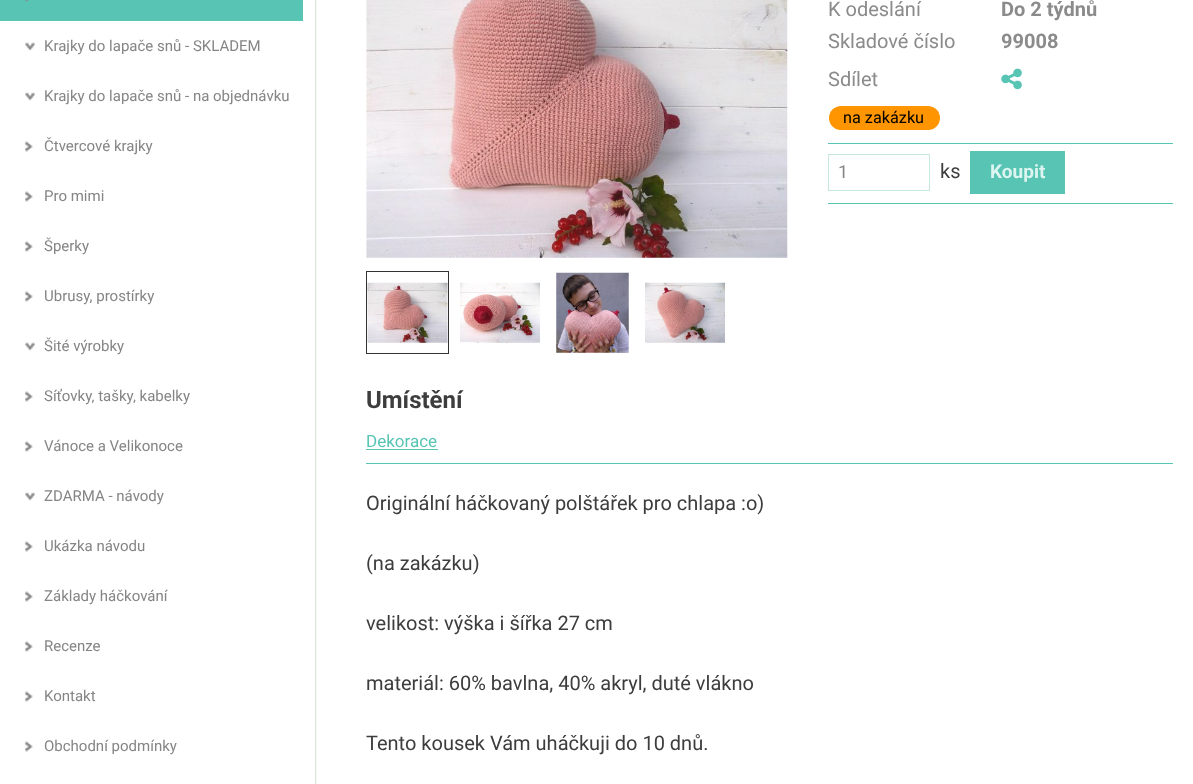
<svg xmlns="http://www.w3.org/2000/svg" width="1193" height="784">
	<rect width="100%" height="100%" fill="#FFFFFF" />
	<image x="315" y="0" width="2" height="784" href="assets/img1.png" />
	<rect x="0" y="0" width="303" height="21" fill="#58C4B4" />
	<image x="25" y="0" width="4" height="2" href="assets/img2.png" />
	<image x="25" y="42" width="10" height="9" href="assets/img3.png" />
	<text x="44" y="51" font-family="Roboto" font-size="15" fill="#858585">Krajky do lapače snů - SKLADEM</text>
	<image x="25" y="92" width="10" height="9" href="assets/img3.png" />
	<text x="44" y="101" font-family="Roboto" font-size="15" fill="#858585">Krajky do lapače snů - na objednávku</text>
	<image x="25" y="141" width="8" height="11" href="assets/img4.png" />
	<text x="44" y="151" font-family="Roboto" font-size="15" fill="#858585">Čtvercové krajky</text>
	<image x="25" y="191" width="8" height="11" href="assets/img4.png" />
	<text x="44" y="201" font-family="Roboto" font-size="15" fill="#858585">Pro mimi</text>
	<image x="25" y="241" width="8" height="11" href="assets/img4.png" />
	<text x="44" y="251" font-family="Roboto" font-size="15" fill="#858585">Šperky</text>
	<image x="25" y="291" width="8" height="11" href="assets/img4.png" />
	<text x="44" y="301" font-family="Roboto" font-size="15" fill="#858585">Ubrusy, prostírky</text>
	<image x="25" y="342" width="10" height="9" href="assets/img3.png" />
	<text x="44" y="351" font-family="Roboto" font-size="15" fill="#858585">Šité výrobky</text>
	<image x="25" y="391" width="8" height="11" href="assets/img4.png" />
	<text x="44" y="401" font-family="Roboto" font-size="15" fill="#858585">Síťovky‚ tašky‚ kabelky</text>
	<image x="25" y="441" width="8" height="11" href="assets/img4.png" />
	<text x="44" y="451" font-family="Roboto" font-size="15" fill="#858585">Vánoce a Velikonoce</text>
	<image x="25" y="492" width="10" height="9" href="assets/img3.png" />
	<text x="44" y="501" font-family="Roboto" font-size="15" fill="#858585">ZDARMA - návody</text>
	<image x="25" y="541" width="8" height="11" href="assets/img4.png" />
	<text x="44" y="551" font-family="Roboto" font-size="15" fill="#858585">Ukázka návodu</text>
	<image x="25" y="591" width="8" height="11" href="assets/img4.png" />
	<text x="44" y="601" font-family="Roboto" font-size="15" fill="#858585">Základy háčkování</text>
	<image x="25" y="641" width="8" height="11" href="assets/img4.png" />
	<text x="44" y="651" font-family="Roboto" font-size="15" fill="#858585">Recenze</text>
	<image x="25" y="691" width="8" height="11" href="assets/img4.png" />
	<text x="44" y="701" font-family="Roboto" font-size="15" fill="#858585">Kontakt</text>
	<image x="25" y="741" width="8" height="11" href="assets/img4.png" />
	<text x="44" y="751" font-family="Roboto" font-size="15" fill="#858585">Obchodní podmínky</text>
	<image x="366" y="0" width="422" height="258" href="assets/img5.png" />
	<rect x="366.5" y="271.5" width="82" height="82" fill="none" stroke="#333333" />
	<image x="367" y="282" width="81" height="61" href="assets/img6.png" />
	<image x="460" y="282" width="80" height="61" href="assets/img7.png" />
	<image x="556" y="272" width="73" height="81" href="assets/img8.png" />
	<image x="645" y="282" width="80" height="61" href="assets/img9.png" />
	<text x="828" y="16" font-family="Roboto" font-size="20" fill="#8B8B8B">K odeslání</text>
	<text x="1001" y="16" font-family="Roboto" font-size="20" font-weight="700" fill="#8B8B8B">Do 2 týdnů</text>
	<text x="828" y="48" font-family="Roboto" font-size="20" fill="#8B8B8B">Skladové číslo</text>
	<text x="1001" y="48" font-family="Roboto" font-size="20" font-weight="700" fill="#8B8B8B">99008</text>
	<text x="828" y="86" font-family="Roboto" font-size="20" fill="#8B8B8B">Sdílet</text>
	<image x="1001" y="68" width="21" height="22" href="assets/img10.png" />
	<rect x="829" y="106" width="111" height="24" rx="12" fill="#FF9500" />
	<text x="843" y="123" font-family="Roboto" font-size="16.25" fill="#000000">na zakázku</text>
	<rect x="828" y="143" width="345" height="1" fill="#58C4B4" />
	<rect x="828.5" y="154.5" width="101" height="36" fill="none" stroke="#C6E6E0" />
	<text x="838" y="178" font-family="Roboto" font-size="18" fill="#858585">1</text>
	<text x="940" y="178" font-family="Roboto" font-size="20" fill="#3D3D3D">ks</text>
	<rect x="970" y="151" width="95" height="43" fill="#58C4B4" />
	<text x="990" y="178" font-family="Roboto" font-size="19" font-weight="700" fill="#DCF5F0">Koupit</text>
	<rect x="828" y="203" width="345" height="1" fill="#58C4B4" />
	<text x="366" y="408" font-family="Roboto" font-size="24" font-weight="700" fill="#3D3D3D">Umístění</text>
	<text x="366" y="447" font-family="Roboto" font-size="17" fill="#58C4B4">Dekorace</text>
	<rect x="366" y="449" width="72" height="1" fill="#58C4B4" />
	<rect x="366" y="463" width="807" height="1" fill="#58C4B4" />
	<g font-family="Roboto" font-size="20" fill="#3D3D3D">
		<text x="366" y="510">Originální háčkovaný polštářek pro chlapa :o)</text>
		<text x="366" y="570">(na zakázku)</text>
		<text x="366" y="630">velikost: výška i šířka 27 cm</text>
		<text x="366" y="690">materiál: 60% bavlna, 40% akryl, duté vlákno</text>
		<text x="366" y="750">Tento kousek Vám uháčkuji do 10 dnů.</text>
	</g>
</svg>
